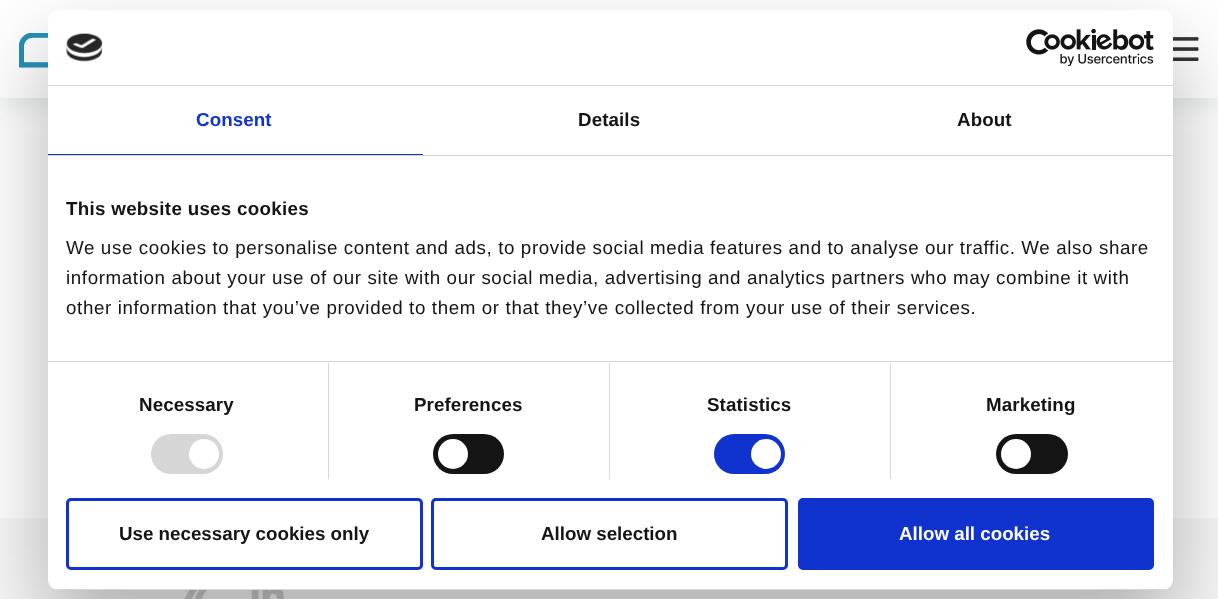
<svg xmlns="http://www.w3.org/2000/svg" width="1218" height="599">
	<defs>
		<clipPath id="clip1"><rect x="48" y="10" width="1125" height="580" rx="10" /></clipPath>
	</defs>
	<rect width="100%" height="100%" fill="#FFFFFF" />
	<rect x="0" y="8" width="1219" height="97" fill="#0D3320" fill-opacity="0.1" filter="blur(12.5px)" />
	<rect x="0" y="0" width="1218" height="98" fill="#FFFFFF" />
	<image x="19" y="33" width="29" height="35" href="assets/img1.png" />
	<image x="1173" y="37" width="26" height="24" href="assets/img2.png" />
	<rect x="0" y="518" width="1218" height="81" fill="#F7F7F7" />
	<image x="184" y="590" width="23" height="9" href="assets/img3.png" />
	<image x="251" y="590" width="33" height="9" href="assets/img4.png" />
	<rect x="48" y="50" width="1125" height="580" rx="10" fill="#000000" fill-opacity="0.3" filter="blur(42.5px)" />
	<rect x="48" y="10" width="1125" height="580" rx="10" fill="#FFFFFF" />
	<rect x="48" y="85" width="1125" height="1" fill="#D6D6D6" />
	<image x="66" y="33" width="37" height="29" href="assets/img5.png" />
	<image x="1026" y="29" width="128" height="37" href="assets/img6.png" />
	<rect x="48" y="155" width="1125" height="1" fill="#D6D6D6" />
	<rect x="48" y="154" width="375" height="1" fill="#1032CF" />
	<text x="196" y="126" font-family="Liberation Sans" font-size="18.75" font-weight="700" letter-spacing="0.1" fill="#1032CF">Consent</text>
	<g font-family="Liberation Sans" font-size="18.75" font-weight="700" letter-spacing="0.1" fill="#141414">
		<text x="578" y="126">Details</text>
		<text x="957" y="126">About</text>
	</g>
	<rect x="48" y="361" width="1125" height="1" fill="#D6D6D6" />
	<text x="66" y="215" font-family="Liberation Sans" font-size="18.75" font-weight="700" letter-spacing="0.3" fill="#141414">This website uses cookies</text>
	<g font-family="Liberation Sans" font-size="18.75" letter-spacing="0.62" fill="#141414">
		<text x="66" y="254">We use cookies to personalise content and ads, to provide social media features and to analyse our traffic. We also share</text>
		<text x="66" y="284">information about your use of our site with our social media, advertising and analytics partners who may combine it with</text>
		<text x="66" y="314">other information that you’ve provided to them or that they’ve collected from your use of their services.</text>
	</g>
	<rect x="328" y="363" width="1" height="116" fill="#D6D6D6" />
	<text x="139" y="411" font-family="Liberation Sans" font-size="18.75" font-weight="700" letter-spacing="0.1" fill="#141414">Necessary</text>
	<rect x="151" y="434" width="72" height="40" rx="20" fill="#D6D6D6" />
	<circle cx="204" cy="454" r="15" fill="#FFFFFF" />
	<rect x="609" y="363" width="1" height="116" fill="#D6D6D6" />
	<text x="414" y="411" font-family="Liberation Sans" font-size="18.75" font-weight="700" letter-spacing="0.1" fill="#141414">Preferences</text>
	<rect x="433" y="434" width="71" height="40" rx="20" fill="#141414" />
	<circle cx="453" cy="454" r="15" fill="#FFFFFF" />
	<rect x="890" y="363" width="1" height="116" fill="#D6D6D6" />
	<text x="707" y="411" font-family="Liberation Sans" font-size="18.75" font-weight="700" letter-spacing="0.1" fill="#141414">Statistics</text>
	<rect x="714" y="434" width="71" height="40" rx="20" fill="#1032CF" />
	<circle cx="766" cy="454" r="15" fill="#FFFFFF" />
	<text x="986" y="411" font-family="Liberation Sans" font-size="18.75" font-weight="700" letter-spacing="0.1" fill="#141414">Marketing</text>
	<rect x="996" y="434" width="72" height="40" rx="20" fill="#141414" />
	<circle cx="1016" cy="454" r="15" fill="#FFFFFF" />
	<g clip-path="url(#clip1)">
		<rect x="48" y="589" width="1125" height="1" fill="#D6D6D6" />
	</g>
	<rect x="67.5" y="499.5" width="354" height="69" rx="3.5" fill="none" stroke="#1032CF" stroke-width="3" />
	<text x="119" y="540" font-family="Liberation Sans" font-size="18.75" font-weight="700" fill="#141414">Use necessary cookies only</text>
	<rect x="432.5" y="499.5" width="354" height="69" rx="3.5" fill="none" stroke="#1032CF" stroke-width="3" />
	<text x="541" y="540" font-family="Liberation Sans" font-size="18.75" font-weight="700" fill="#141414">Allow selection</text>
	<rect x="799.5" y="499.5" width="353" height="69" rx="3.5" fill="#1032CF" stroke="#1032CF" stroke-width="3" />
	<text x="899" y="540" font-family="Liberation Sans" font-size="18.75" font-weight="700" fill="#FFFFFF">Allow all cookies</text>
</svg>
